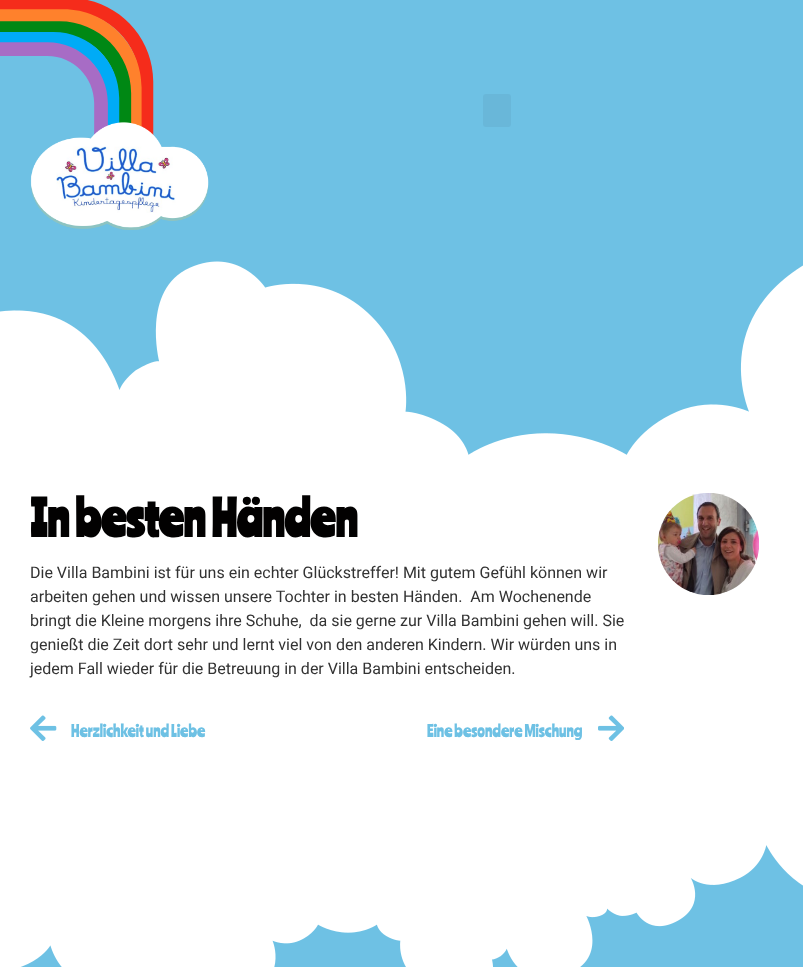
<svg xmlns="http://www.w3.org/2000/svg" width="803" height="967">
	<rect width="100%" height="100%" fill="#FFFFFF" />
	<rect x="0" y="0" width="803" height="231" fill="#6EC1E4" />
	<image x="0" y="0" width="209" height="230" href="assets/img1.png" />
	<rect x="483" y="94" width="28" height="33" rx="3" fill="#69B7D9" />
	<image x="0" y="231" width="803" height="224" href="assets/img2.png" />
	<text x="30" y="537" font-family="Ranchers" font-size="48" font-weight="700" fill="#020101">In besten Händen</text>
	<g font-family="Roboto" font-size="16" fill="#333333">
		<text x="30" y="578">Die Villa Bambini ist für uns ein echter Glückstreffer! Mit gutem Gefühl können wir</text>
		<text x="30" y="602" xml:space="preserve">arbeiten gehen und wissen unsere Tochter in besten Händen.  Am Wochenende</text>
		<text x="30" y="626" xml:space="preserve">bringt die Kleine morgens ihre Schuhe,  da sie gerne zur Villa Bambini gehen will. Sie</text>
		<text x="30" y="650">genießt die Zeit dort sehr und lernt viel von den anderen Kindern. Wir würden uns in</text>
		<text x="30" y="674">jedem Fall wieder für die Betreuung in der Villa Bambini entscheiden.</text>
	</g>
	<image x="30" y="715" width="27" height="26" href="assets/img3.png" />
	<g font-family="Ranchers" font-size="16" fill="#6EC1E4">
		<text x="71" y="737">Herzlichkeit und Liebe</text>
		<text x="427" y="737">Eine besondere Mischung</text>
	</g>
	<image x="598" y="715" width="26" height="26" href="assets/img4.png" />
	<image x="658" y="493" width="101" height="102" href="assets/img5.png" />
	<image x="20" y="845" width="783" height="122" href="assets/img6.png" />
</svg>
